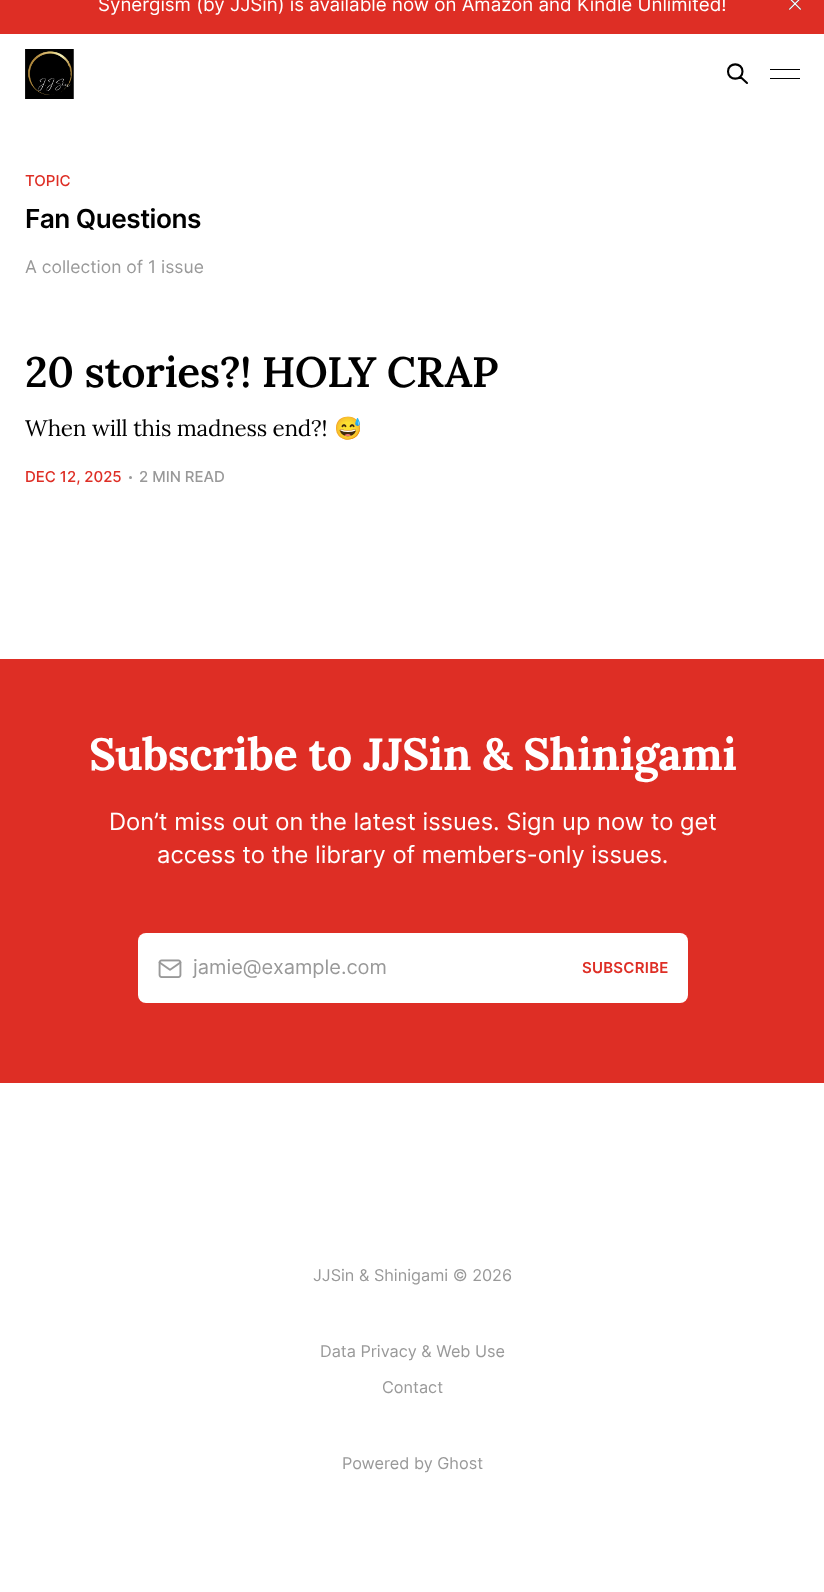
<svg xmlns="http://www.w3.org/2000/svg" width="824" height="1592">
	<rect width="100%" height="100%" fill="#FFFFFF" />
	<rect x="0" y="0" width="824" height="34" fill="#DE2E25" />
	<text x="98" y="11" font-family="Inter" font-size="18.75" fill="#FFFFFF">Synergism (by JJSin) is available now on Amazon and Kindle Unlimited!</text>
	<image x="788" y="0" width="14" height="10" href="assets/img1.png" />
	<image x="25" y="49" width="49" height="50" href="assets/img2.png" />
	<path d="M747 83L740.5 77M742.5 71.5C742.5 81 728 81 728 71.5C728 62 742.5 62 742.5 71.5Z" fill="none" stroke="#000000" stroke-width="2.1" stroke-linecap="round" stroke-linejoin="round" />
	<rect x="770" y="69" width="30" height="1" fill="#000000" />
	<rect x="770" y="78" width="30" height="1" fill="#000000" />
	<text x="25" y="186" font-family="Inter" font-size="15" font-weight="500" fill="#DE2E25">TOPIC</text>
	<text x="25" y="228" font-family="Inter" font-size="26.25" font-weight="600" letter-spacing="-0.5" fill="#000000">Fan Questions</text>
	<text x="25" y="273" font-family="Inter" font-size="17.5" fill="#999999">A collection of 1 issue</text>
	<text x="25" y="387" font-family="Lora" font-size="42.5" font-weight="600" letter-spacing="-0.4" fill="#000000">20 stories?! HOLY CRAP</text>
	<text x="25" y="436" font-family="Lora" font-size="22.5" letter-spacing="-0.25" fill="#000000">When will this madness end?!</text>
	<text x="334" y="436" font-family="Noto Color Emoji" font-size="22.5" letter-spacing="-0.25" fill="#000000">😅</text>
	<text x="25" y="482" font-family="Inter" font-size="15" font-weight="500" fill="#DE2E25">DEC 12, 2025</text>
	<circle cx="130.5" cy="477.5" r="1.5" fill="#999999" />
	<text x="139" y="482" font-family="Inter" font-size="15" font-weight="500" fill="#999999">2 MIN READ</text>
	<rect x="0" y="659" width="824" height="424" fill="#DE2E25" />
	<text x="89" y="770" font-family="Lora" font-size="45" font-weight="700" letter-spacing="-0.45" fill="#FFFFFF">Subscribe to JJSin &amp; Shinigami</text>
	<g font-family="Inter" font-size="23.75" fill="#FFFFFF">
		<text x="109" y="830">Don’t miss out on the latest issues. Sign up now to get</text>
		<text x="157" y="863">access to the library of members-only issues.</text>
	</g>
	<rect x="138" y="933" width="550" height="70" rx="8" fill="#FFFFFF" />
	<image x="158" y="959" width="24" height="19" href="assets/img3.png" />
	<text x="193" y="974" font-family="Inter" font-size="20" fill="#999999">jamie@example.com</text>
	<text x="582" y="973" font-family="Inter" font-size="15" font-weight="600" letter-spacing="0.25" fill="#DE2E25">SUBSCRIBE</text>
	<g font-family="Inter" font-size="16.25" fill="#999999">
		<text x="313" y="1281">JJSin &amp; Shinigami © 2026</text>
		<text x="320" y="1357">Data Privacy &amp; Web Use</text>
		<text x="382" y="1393">Contact</text>
		<text x="342" y="1469">Powered by Ghost</text>
	</g>
</svg>
